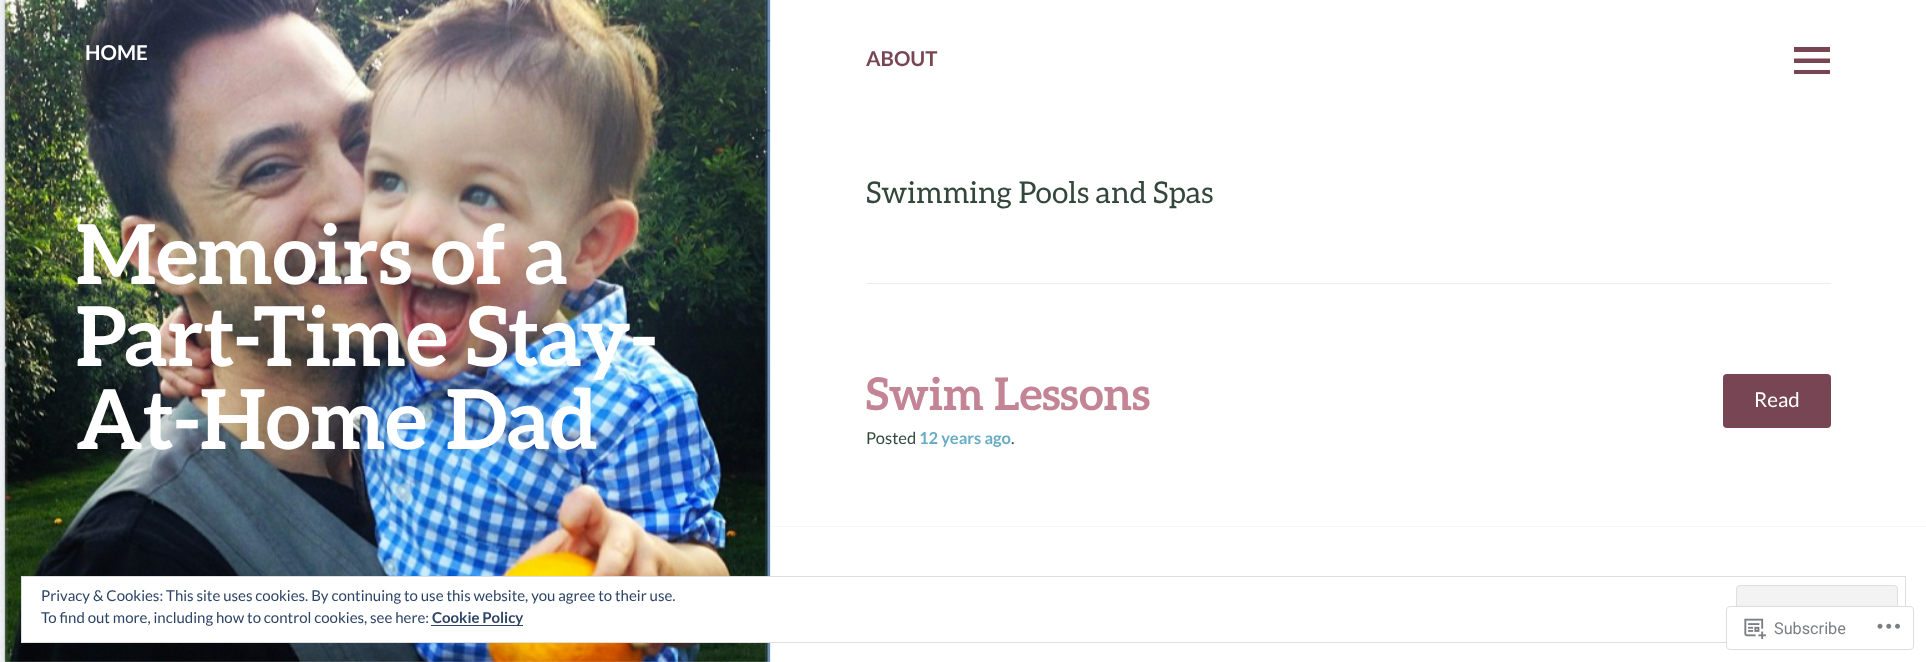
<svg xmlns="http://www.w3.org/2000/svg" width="1926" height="662">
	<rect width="100%" height="100%" fill="#FFFFFF" />
	<rect x="770" y="526" width="1156" height="1" fill="#F5F6F5" />
	<image x="0" y="0" width="771" height="662" href="assets/img1.png" />
	<text x="85" y="60" font-family="Lato" font-size="20.5" font-weight="700" fill="#FFFFFF">HOME</text>
	<text x="866" y="66" font-family="Lato" font-size="20.5" font-weight="700" fill="#774553">ABOUT</text>
	<path d="M1794 74V70H1830V74ZM1794 47H1830V52H1794ZM1794 63V58.5H1830V63Z" fill="#774553" />
	<text x="866" y="203" font-family="Aleo" font-size="30" fill="#33473D">Swimming Pools and Spas</text>
	<rect x="866" y="283" width="965" height="1" fill="#EBEDEC" />
	<text x="866" y="410" font-family="Aleo" font-size="45" font-weight="700" fill="#C38596">Swim Lessons</text>
	<rect x="1723" y="374" width="108" height="54" rx="4" fill="#774553" />
	<text x="1754" y="407" font-family="Lato" font-size="20.5" fill="#FFFFFF">Read</text>
	<text x="866" y="444" font-family="Lato" font-size="16.5" fill="#33473D">Posted</text>
	<text x="919" y="444" font-family="Lato" font-size="16.5" font-weight="700" fill="#68ADC3">12 years ago</text>
	<text x="1011" y="444" font-family="Lato" font-size="16.5" fill="#33473D">.</text>
	<g font-family="Aleo" font-size="82.5" font-weight="700" fill="#FFFFFF">
		<text x="76" y="284">Memoirs of a</text>
		<text x="76" y="366">Part-Time Stay-</text>
		<text x="76" y="449">At-Home Dad</text>
	</g>
	<rect x="22" y="577" width="749" height="65" fill="#FFFFFF" />
	<rect x="21.5" y="576.5" width="1884" height="66" fill="none" stroke="#DEDEDE" />
	<text x="41" y="601" font-family="Lato" font-size="15" fill="#2E4467">Privacy &amp; Cookies: This site uses cookies. By continuing to use this website, you agree to their use.</text>
	<rect x="1736.5" y="585.5" width="161" height="48" rx="3.5" fill="#F3F3F3" stroke="#DEDEDE" />
	<text x="41" y="623" font-family="Lato" font-size="15" fill="#2E4467">To find out more, including how to control cookies, see here:</text>
	<rect x="431" y="625" width="92" height="1" fill="#2E4467" />
	<text x="432" y="623" font-family="Lato" font-size="15" font-weight="700" fill="#2E4467">Cookie Policy</text>
	<rect x="1726" y="606" width="188" height="44" rx="4" fill="#FFFFFF" fill-opacity="0.98" />
	<rect x="1726.5" y="606.5" width="187" height="43" rx="3.5" fill="none" stroke="#DCDCDE" stroke-opacity="0.98" />
	<image x="1744" y="618" width="22" height="22" href="assets/img2.png" />
	<text x="1774" y="634" font-family="Roboto" font-size="16.25" fill="#7B7F84">Subscribe</text>
	<image x="1877" y="623" width="23" height="6" href="assets/img3.png" />
</svg>
